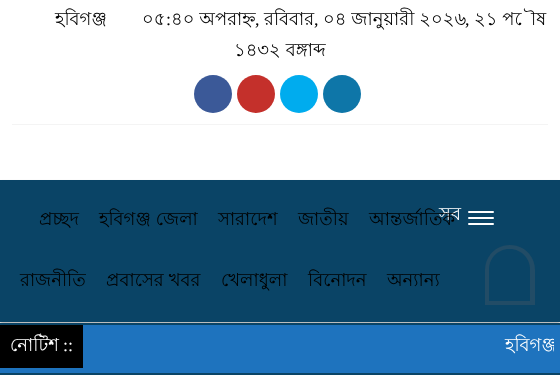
<svg xmlns="http://www.w3.org/2000/svg" width="560" height="375">
	<defs>
		<clipPath id="clip1"><rect x="6" y="331" width="548" height="31" /></clipPath>
	</defs>
	<rect width="100%" height="100%" fill="#FFFFFF" />
	<rect x="12" y="124" width="536" height="1" fill="#F4F4F4" />
	<g font-family="Lohit Bengali" font-size="18" fill="#000000">
		<text x="55" y="25">হবিগঞ্জ</text>
		<text x="142" y="25">০৫</text>
	</g>
	<text x="166" y="25" font-family="Liberation Serif" font-size="18" fill="#000000">:</text>
	<text x="171" y="25" font-family="Lohit Bengali" font-size="18" fill="#000000">৪০ অপরাহ্ন</text>
	<text x="255" y="25" font-family="Liberation Serif" font-size="18" fill="#000000">,</text>
	<text x="264" y="25" font-family="Lohit Bengali" font-size="18" fill="#000000">রবিবার</text>
	<text x="314" y="25" font-family="Liberation Serif" font-size="18" fill="#000000">,</text>
	<text x="323" y="25" font-family="Lohit Bengali" font-size="18" fill="#000000">০৪ জানুয়ারী ২০২৬</text>
	<text x="465" y="25" font-family="Liberation Serif" font-size="18" fill="#000000">,</text>
	<g font-family="Lohit Bengali" font-size="18" fill="#000000">
		<text x="474" y="25">২১ পৌষ</text>
		<text x="234" y="56">১৪৩২ বঙ্গাব্দ</text>
	</g>
	<circle cx="213" cy="94" r="19" fill="#3B5998" />
	<circle cx="256" cy="94" r="19" fill="#C4302B" />
	<circle cx="299" cy="94" r="19" fill="#00ACEE" />
	<circle cx="342" cy="94" r="19" fill="#0E76A8" />
	<rect x="0" y="182" width="560" height="142" fill="#000000" fill-opacity="0.3" filter="blur(1.5px)" />
	<rect x="0" y="180" width="560" height="142" fill="#0A4466" />
	<g font-family="Lohit Bengali" font-size="18" fill="#000000">
		<text x="39" y="225">প্রচ্ছদ</text>
		<text x="99" y="225">হবিগঞ্জ জেলা</text>
		<text x="218" y="225">সারাদেশ</text>
		<text x="298" y="225">জাতীয়</text>
	</g>
	<text x="439" y="220" font-family="Lohit Bengali" font-size="18" fill="#FFFFFF">সব</text>
	<g font-family="Lohit Bengali" font-size="18" fill="#000000">
		<text x="369" y="225">আন্তর্জাতিক</text>
		<text x="20" y="286">রাজনীতি</text>
		<text x="106" y="286">প্রবাসের খবর</text>
		<text x="221" y="286">খেলাধুলা</text>
		<text x="308" y="286">বিনোদন</text>
		<text x="387" y="286">অন্যান্য</text>
	</g>
	<rect x="468" y="211" width="26" height="2" rx="1" fill="#FFFFFF" />
	<rect x="468" y="217" width="26" height="2" rx="1" fill="#FFFFFF" />
	<rect x="468" y="223" width="26" height="2" rx="1" fill="#FFFFFF" />
	<path d="M510 245C524 245 535 256 535 270V305H485V270C485 256 496 245 510 245Z" fill="#224C66" />
	<path d="M509.5 249C521 249 530 258 530 269.5V301H489V269.5C489 258 498 249 509.5 249Z" fill="#0A4466" />
	<rect x="0" y="325" width="560" height="48" fill="#1E73BE" />
	<rect x="0" y="323" width="560" height="2" fill="#0A4466" />
	<rect x="0" y="373" width="560" height="2" fill="#0A4466" />
	<rect x="0" y="325" width="83" height="43" fill="#000000" />
	<text x="10" y="351" font-family="Lohit Bengali" font-size="18" fill="#FFFFFF">নোটিশ</text>
	<text x="63" y="351" font-family="Liberation Serif" font-size="18" fill="#FFFFFF">::</text>
	<g clip-path="url(#clip1)">
		<text x="505" y="351" font-family="Lohit Bengali" font-size="18" fill="#FFFFFF">হবিগঞ্জ</text>
	</g>
</svg>
